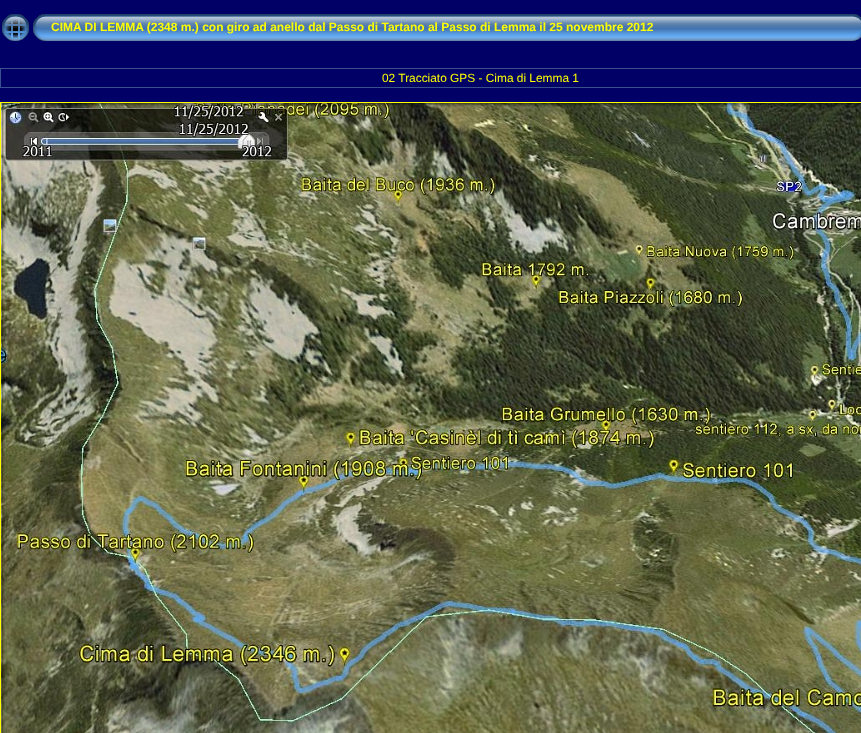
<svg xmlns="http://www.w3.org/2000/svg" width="861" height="733">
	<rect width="100%" height="100%" fill="#000066" />
	<image x="2" y="14" width="27" height="27" href="assets/img1.png" />
	<image x="33" y="14" width="18" height="27" href="assets/img2.png" />
	<image x="51" y="14" width="796" height="27" href="assets/img3.png" />
	<text x="51" y="31" font-family="Liberation Sans" font-size="12" font-weight="700" fill="#FFFF00">CIMA DI LEMMA (2348 m.) con giro ad anello dal Passo di Tartano al Passo di Lemma il 25 novembre 2012</text>
	<image x="847" y="14" width="14" height="27" href="assets/img4.png" />
	<rect x="0" y="68" width="861" height="1" fill="#38518C" />
	<rect x="0" y="87" width="861" height="1" fill="#38518C" />
	<rect x="0" y="68" width="1" height="20" fill="#38518C" />
	<text x="382" y="82" font-family="Liberation Sans" font-size="11.9" fill="#FFFF00">02 Tracciato GPS - Cima di Lemma 1</text>
	<rect x="0.5" y="102.5" width="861" height="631" fill="none" stroke="#FFFF00" />
	<image x="1" y="103" width="860" height="630" href="assets/img5.png" />
</svg>
